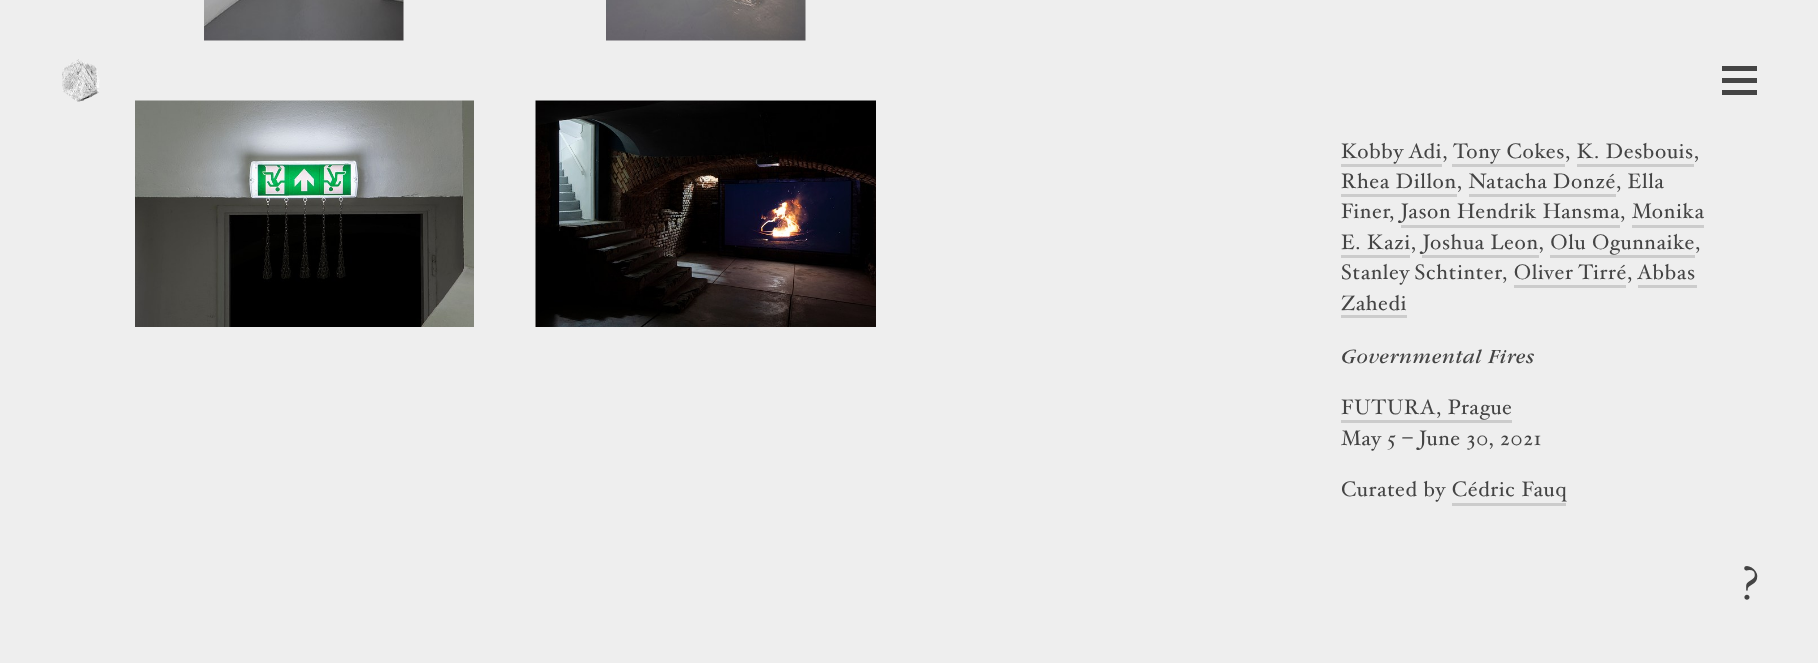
<svg xmlns="http://www.w3.org/2000/svg" width="1818" height="663">
	<rect width="100%" height="100%" fill="#EEEEEE" />
	<image x="62" y="59" width="38" height="43" href="assets/img1.png" />
	<rect x="1722" y="66" width="35" height="5" fill="#444444" />
	<rect x="1722" y="78" width="35" height="5" fill="#444444" />
	<rect x="1722" y="90" width="35" height="5" fill="#444444" />
	<image x="204" y="0" width="200" height="41" href="assets/img2.png" />
	<image x="606" y="0" width="200" height="41" href="assets/img3.png" />
	<image x="135" y="100" width="339" height="227" href="assets/img4.png" />
	<image x="535" y="100" width="341" height="227" href="assets/img5.png" />
	<text x="1341" y="158" font-family="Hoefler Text" font-size="21" letter-spacing="0.65" fill="#444444">Kobby Adi,</text>
	<rect x="1341" y="164" width="101" height="3" fill="#CCCCCC" />
	<text x="1453" y="158" font-family="Hoefler Text" font-size="21" letter-spacing="0.65" fill="#444444">Tony Cokes, K. Desbouis,</text>
	<rect x="1452" y="164" width="113" height="3" fill="#CCCCCC" />
	<rect x="1577" y="164" width="117" height="3" fill="#CCCCCC" />
	<text x="1341" y="188" font-family="Hoefler Text" font-size="21" letter-spacing="0.65" fill="#444444">Rhea Dillon, Natacha Donzé, Ella</text>
	<rect x="1341" y="194" width="116" height="3" fill="#CCCCCC" />
	<rect x="1469" y="194" width="147" height="3" fill="#CCCCCC" />
	<g font-family="Hoefler Text" font-size="21" letter-spacing="0.65" fill="#444444">
		<text x="1341" y="218">Finer</text>
		<text x="1389" y="218">, Jason Hendrik Hansma, Monika</text>
	</g>
	<rect x="1401" y="225" width="219" height="3" fill="#CCCCCC" />
	<text x="1341" y="249" font-family="Hoefler Text" font-size="21" letter-spacing="0.65" fill="#444444">E. Kazi, Joshua Leon, Olu Ogunnaike,</text>
	<rect x="1632" y="225" width="72" height="3" fill="#CCCCCC" />
	<rect x="1341" y="255" width="69" height="3" fill="#CCCCCC" />
	<rect x="1422" y="255" width="117" height="3" fill="#CCCCCC" />
	<rect x="1550" y="255" width="145" height="3" fill="#CCCCCC" />
	<g font-family="Hoefler Text" font-size="21" letter-spacing="0.65" fill="#444444">
		<text x="1341" y="279" word-spacing="-1">Stanley Schtinter</text>
		<text x="1502" y="279">, Oliver Tirré,</text>
		<text x="1637" y="279">Abbas</text>
	</g>
	<rect x="1638" y="285" width="59" height="3" fill="#CCCCCC" />
	<rect x="1514" y="285" width="112" height="3" fill="#CCCCCC" />
	<text x="1341" y="310" font-family="Hoefler Text" font-size="21" letter-spacing="0.65" fill="#444444">Zahedi</text>
	<rect x="1341" y="315" width="66" height="3" fill="#CCCCCC" />
	<text x="1341" y="363" font-family="Garamond" font-size="21" font-style="italic" letter-spacing="0.65" fill="#444444">Governmental Fires</text>
	<text x="1341" y="414" font-family="Hoefler Text" font-size="21" letter-spacing="0.65" fill="#444444">FUTURA, Prague</text>
	<rect x="1341" y="420" width="171" height="3" fill="#CCCCCC" />
	<g font-family="Hoefler Text" font-size="21" letter-spacing="0.65" fill="#444444">
		<text x="1341" y="445">May 5 – June 30, 2021</text>
		<text x="1341" y="496">Curated by Cédric Fauq</text>
	</g>
	<rect x="1452" y="503" width="114" height="3" fill="#CCCCCC" />
	<text x="1742" y="599" font-family="Hoefler Text" font-size="48" letter-spacing="0.65" fill="#444444">?</text>
</svg>
